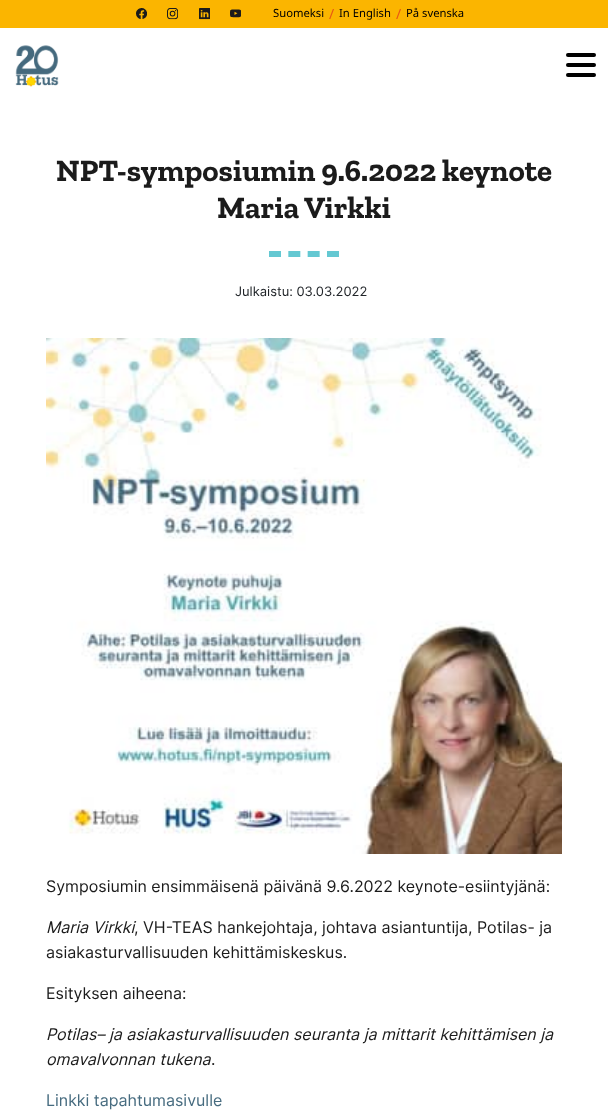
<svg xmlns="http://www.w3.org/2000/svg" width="608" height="1112">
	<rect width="100%" height="100%" fill="#FFFFFF" />
	<rect x="0" y="0" width="608" height="28" fill="#FBB500" />
	<image x="136" y="8" width="11" height="11" href="assets/img1.png" />
	<image x="167" y="8" width="11" height="12" href="assets/img2.png" />
	<image x="199" y="8" width="11" height="12" href="assets/img3.png" />
	<image x="230" y="9" width="11" height="9" href="assets/img4.png" />
	<text x="273" y="17" font-family="Noto Sans" font-size="11.25" fill="#000000">Suomeksi</text>
	<text x="329" y="19" font-family="Noto Sans" font-size="14" fill="#E85714">/</text>
	<text x="339" y="17" font-family="Noto Sans" font-size="11.25" fill="#000000">In English</text>
	<text x="396" y="19" font-family="Noto Sans" font-size="14" fill="#E85714">/</text>
	<text x="406" y="17" font-family="Noto Sans" font-size="11.25" fill="#000000">På svenska</text>
	<image x="15" y="45" width="44" height="42" href="assets/img5.png" />
	<rect x="566" y="53" width="30" height="4" rx="2" fill="#000000" />
	<rect x="566" y="63" width="30" height="4" rx="2" fill="#000000" />
	<rect x="566" y="73" width="30" height="4" rx="2" fill="#000000" />
	<g font-family="Zilla Slab" font-size="31.1" font-weight="700" fill="#1B1B1B">
		<text x="56" y="181">NPT-symposiumin 9.6.2022 keynote</text>
		<text x="217" y="218">Maria Virkki</text>
	</g>
	<path d="M269 254H339" fill="none" stroke="#64C8D2" stroke-width="6" stroke-dasharray="12 7.33" />
	<text x="235" y="296" font-family="Inter" font-size="13" fill="#212529">Julkaistu: 03.03.2022</text>
	<image x="46" y="338" width="516" height="516" href="assets/img6.png" />
	<text x="46" y="892" font-family="Inter" font-size="16" fill="#1B1B1B">Symposiumin ensimmäisenä päivänä 9.6.2022 keynote-esiintyjänä:</text>
	<text x="46" y="933" font-family="Inter" font-size="16" font-style="italic" fill="#1B1B1B">Maria Virkki</text>
	<g font-family="Inter" font-size="16" fill="#1B1B1B">
		<text x="134" y="933">, VH-TEAS hankejohtaja, johtava asiantuntija, Potilas- ja</text>
		<text x="46" y="958">asiakasturvallisuuden kehittämiskeskus.</text>
		<text x="46" y="999">Esityksen aiheena:</text>
	</g>
	<g font-family="Inter" font-size="16" font-style="italic" fill="#1B1B1B">
		<text x="46" y="1040">Potilas– ja asiakasturvallisuuden seuranta ja mittarit kehittämisen ja</text>
		<text x="46" y="1065">omavalvonnan tukena</text>
	</g>
	<text x="211" y="1065" font-family="Inter" font-size="16" fill="#1B1B1B">.</text>
	<text x="46" y="1106" font-family="Inter" font-size="16" fill="#466B7F">Linkki tapahtumasivulle</text>
</svg>
